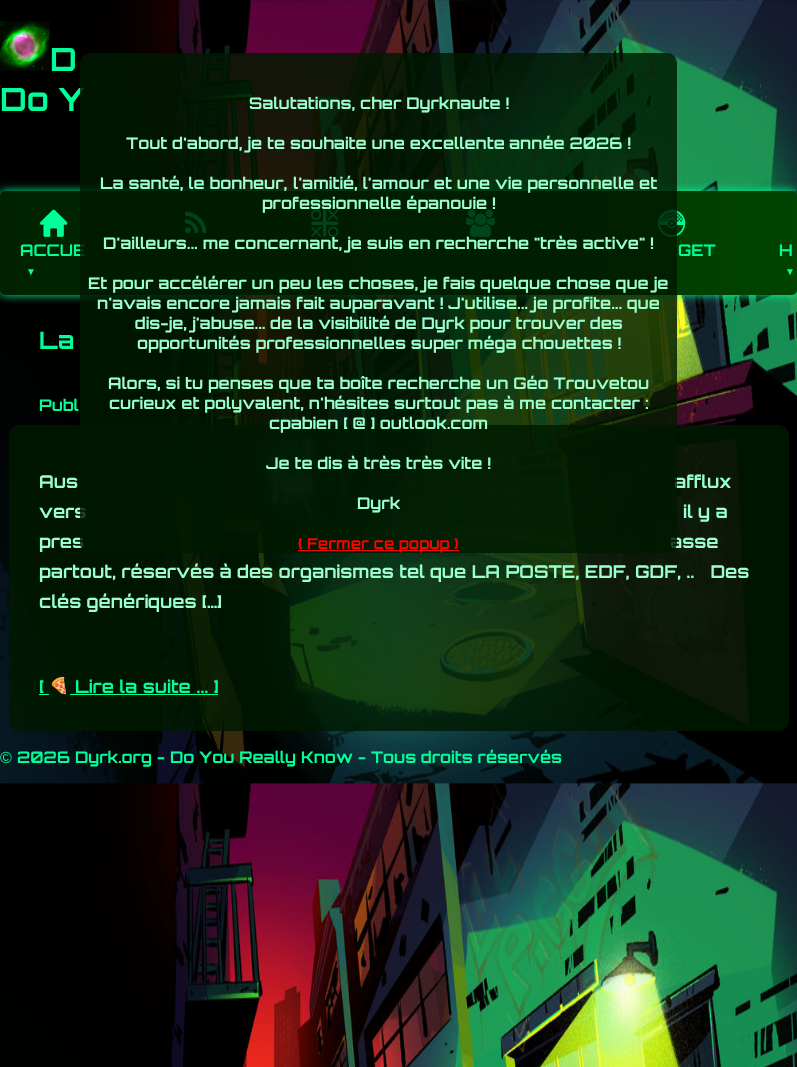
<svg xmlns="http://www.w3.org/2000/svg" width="797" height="1067">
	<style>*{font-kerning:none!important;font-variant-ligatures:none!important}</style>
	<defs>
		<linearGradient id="g1" gradientUnits="userSpaceOnUse" x1="0" y1="243" x2="797" y2="243"><stop offset="0" stop-color="#002200" /><stop offset="1" stop-color="#004400" /></linearGradient>
	</defs>
	<rect width="100%" height="100%" fill="#FFFFFF" />
	<image x="0" y="0" width="797" height="1067" href="assets/img1.png" />
	<image x="0" y="21" width="50" height="50" href="assets/img2.png" />
	<g font-family="Orbitron" font-size="32" font-weight="700" fill="#00FF99">
		<text x="50" y="71">D</text>
		<text x="0" y="111">Do Y</text>
	</g>
	<rect x="0" y="191" width="797" height="104" rx="5" fill="#00FF99" filter="blur(5px)" />
	<rect x="0" y="191" width="797" height="104" rx="5" fill="url(#g1)" />
	<image x="185" y="211" width="22" height="22" href="assets/img3.png" />
	<image x="311" y="209" width="28" height="28" href="assets/img4.png" />
	<image x="466" y="209" width="30" height="28" href="assets/img5.png" />
	<image x="40" y="209" width="28" height="28" href="assets/img6.png" />
	<text x="20" y="256" font-family="Orbitron" font-size="16" font-weight="700" fill="#00FF99">ACCUE</text>
	<text x="26" y="275" font-family="Liberation Sans" font-size="10" font-weight="700" fill="#00FF99">▼</text>
	<image x="658" y="209" width="28" height="28" href="assets/img7.png" />
	<g font-family="Orbitron" font-size="16" font-weight="700" fill="#00FF99">
		<text x="678" y="256">GET</text>
		<text x="779" y="256">H</text>
	</g>
	<text x="785" y="275" font-family="Liberation Sans" font-size="10" font-weight="700" fill="#00FF99">▼</text>
	<rect x="9" y="425" width="780" height="306" rx="10" fill="#001A00" fill-opacity="0.82" />
	<g font-family="Orbitron" font-size="17.6" font-weight="700" fill="#99FFCC">
		<text x="674" y="488">afflux</text>
		<text x="39" y="518">vers</text>
		<text x="39" y="548">pres</text>
		<text x="670" y="548">asse</text>
	</g>
	<rect x="80" y="53" width="597" height="500" rx="10" fill="#001A00" fill-opacity="0.82" />
	<g font-family="Orbitron" font-size="16" font-weight="700" fill="#99FFCC">
		<text x="249" y="109">Salutations, cher Dyrknaute !</text>
		<text x="126" y="149">Tout d'abord, je te souhaite une excellente</text>
		<text x="509" y="149">année 2026 !</text>
		<text x="100" y="189">La santé, le bonheur,</text>
		<text x="293" y="189">l'amitié, l'amour et une vie personnelle et</text>
		<text x="262" y="209">professionnelle épanouie !</text>
		<text x="103" y="249">D'ailleurs... me concernant, je suis en recherche "très active"</text>
		<text x="650" y="249">!</text>
		<text x="88" y="289">Et pour accélérer un peu les choses, je fais quelque</text>
		<text x="556" y="289">chose que je</text>
		<text x="97" y="309">n'avais encore jamais fait auparavant ! J'utilise... je profite... que</text>
		<text x="135" y="329">dis-je, j'abuse... de la visibilité de Dyrk pour trouver des</text>
		<text x="137" y="349">opportunités professionnelles super méga chouettes !</text>
		<text x="108" y="389">Alors, si tu penses que ta boîte recherche un Géo Trouvetou</text>
		<text x="109" y="409">curieux et polyvalent, n'hésites surtout pas à me contacter</text>
		<text x="645" y="409">:</text>
		<text x="269" y="429">cpabien [ @ ] outlook.com</text>
		<text x="266" y="469">Je te dis à très très vite !</text>
		<text x="357" y="509">Dyrk</text>
	</g>
	<rect x="298" y="550" width="161" height="1" fill="#FF0000" />
	<text x="298" y="549" font-family="Orbitron" font-size="15" font-weight="700" fill="#FF0000">{ Fermer ce popup }</text>
	<text x="39" y="349" font-family="Orbitron" font-size="24" font-weight="700" fill="#00FF99">La</text>
	<text x="39" y="411" font-family="Orbitron" font-size="16" font-weight="700" fill="#00FF99">Publ</text>
	<g font-family="Orbitron" font-size="17.6" font-weight="700" fill="#99FFCC">
		<text x="39" y="488">Aus</text>
		<text x="683" y="518">il y a</text>
		<text x="39" y="578" xml:space="preserve">partout, réservés à des organismes tel que LA POSTE, EDF, GDF, ..   Des</text>
		<text x="39" y="608">clés génériques […]</text>
	</g>
	<text x="39" y="693" font-family="Orbitron" font-size="17.6" font-weight="700" fill="#00FF99">[</text>
	<rect x="39" y="694" width="10" height="1" fill="#00FF99" />
	<text x="49" y="691" font-family="Noto Color Emoji" font-size="16" fill="#00FF99">🍕</text>
	<text x="75" y="693" font-family="Orbitron" font-size="17.6" font-weight="700" fill="#00FF99">Lire la suite ... ]</text>
	<rect x="70" y="694" width="148" height="1" fill="#00FF99" />
	<text x="0" y="763" font-family="Liberation Sans" font-size="16" fill="#00FF99">©</text>
	<text x="17" y="763" font-family="Orbitron" font-size="16" font-weight="700" fill="#00FF99">2026 Dyrk.org - Do You Really Know - Tous</text>
	<text x="421" y="763" font-family="Orbitron" font-size="16" font-weight="700" fill="#00FF99">droits réservés</text>
</svg>
